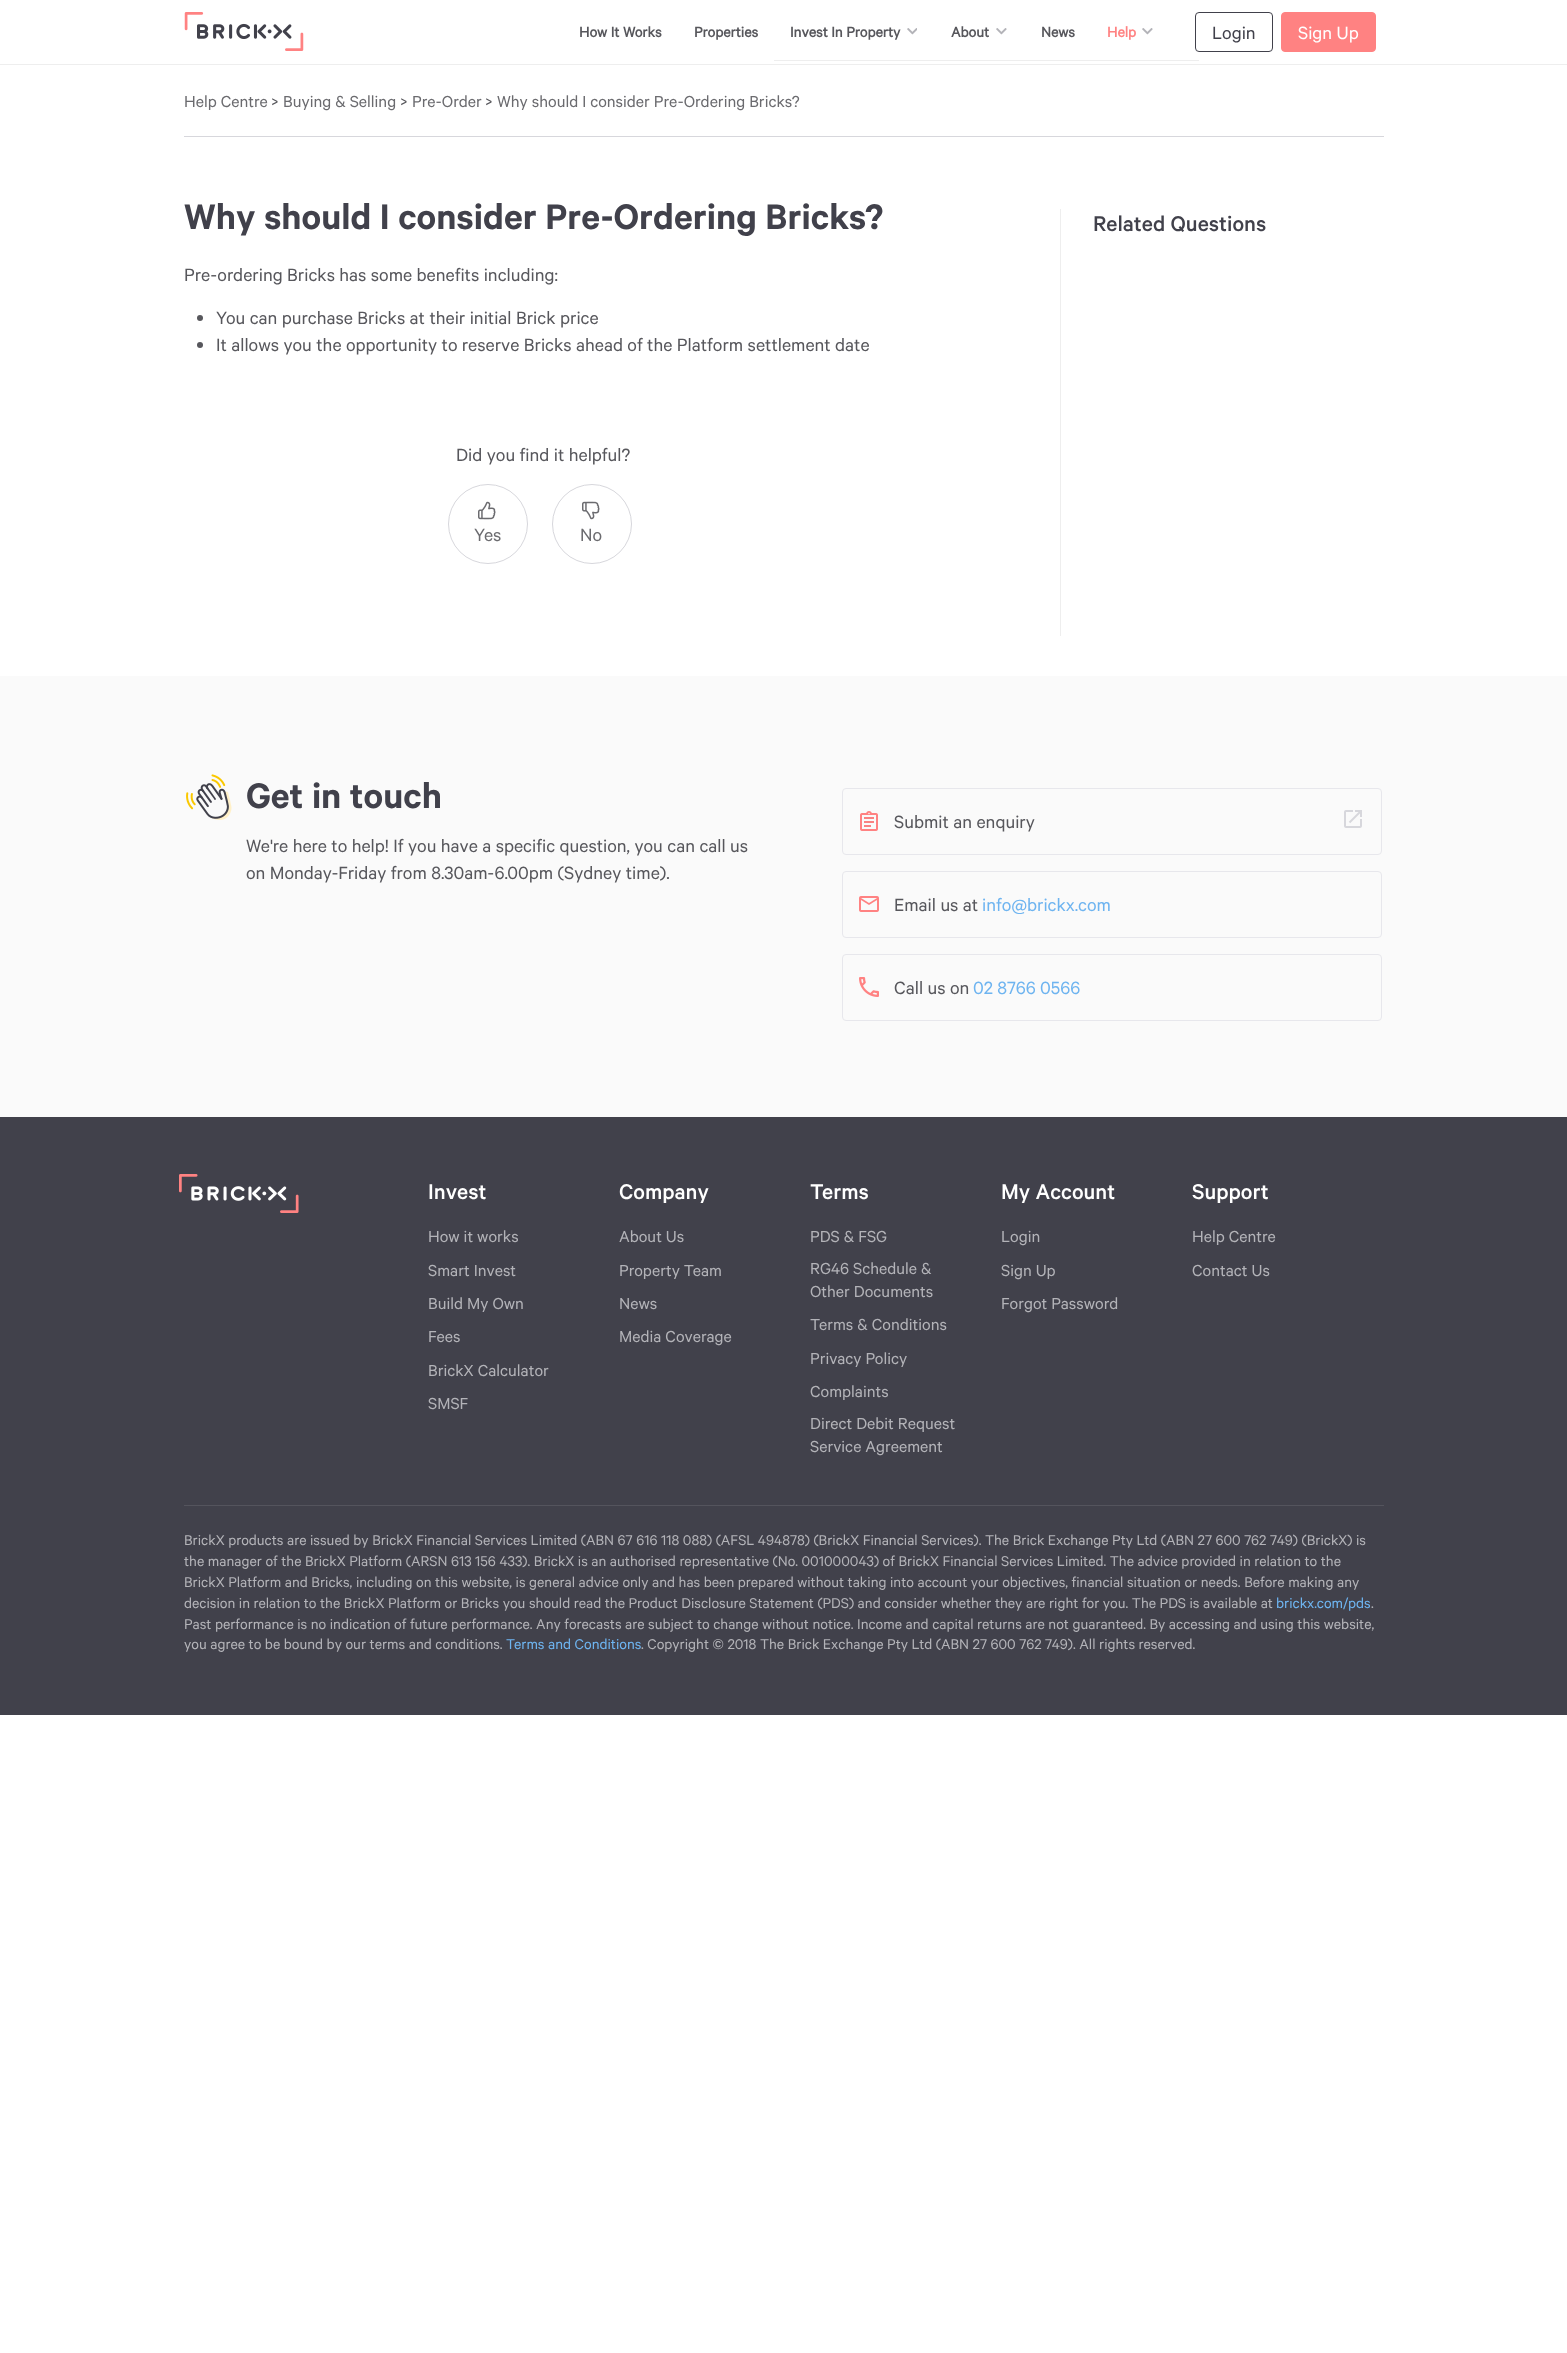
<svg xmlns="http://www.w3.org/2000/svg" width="1567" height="2353">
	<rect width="100%" height="100%" fill="#FFFFFF" />
	<rect x="0" y="64" width="1567" height="1" fill="#EEEEEE" />
	<image x="184" y="12" width="120" height="39" href="assets/img1.png" />
	<g font-family="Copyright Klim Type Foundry" font-size="16" font-weight="700" fill="#57575C">
		<text x="579" y="37">How It Works</text>
		<text x="694" y="37">Properties</text>
		<text x="790" y="37">Invest In Property</text>
	</g>
	<image x="907" y="28" width="10" height="7" href="assets/img2.png" />
	<rect x="774" y="60" width="425" height="1" fill="#EEEEEE" />
	<text x="951" y="37" font-family="Copyright Klim Type Foundry" font-size="16" font-weight="700" fill="#57575C">About</text>
	<image x="996" y="28" width="11" height="7" href="assets/img3.png" />
	<text x="1041" y="37" font-family="Copyright Klim Type Foundry" font-size="16" font-weight="700" fill="#57575C">News</text>
	<text x="1107" y="37" font-family="Copyright Klim Type Foundry" font-size="16" font-weight="700" fill="#FF8282">Help</text>
	<image x="1142" y="28" width="11" height="7" href="assets/img3.png" />
	<rect x="1195.5" y="12.5" width="77" height="39" rx="3.5" fill="none" stroke="#41414B" />
	<text x="1212" y="39" font-family="Copyright Klim Type Foundry" font-size="20" fill="#41414B">Login</text>
	<rect x="1281.5" y="12.5" width="94" height="39" rx="3.5" fill="#FF8282" stroke="#FF8282" />
	<text x="1298" y="39" font-family="Copyright Klim Type Foundry" font-size="20" fill="#FFFFFF">Sign Up</text>
	<rect x="184" y="136" width="1200" height="1" fill="#D7D7DC" />
	<text x="184" y="107" font-family="Copyright Klim Type Foundry" font-size="18" fill="#6B6B6F">Help Centre</text>
	<text x="271" y="107" font-family="Copyright Klim Type Foundry" font-size="18" fill="#57575C">&gt;</text>
	<text x="283" y="107" font-family="Copyright Klim Type Foundry" font-size="18" fill="#6B6B6F">Buying &amp; Selling</text>
	<text x="400" y="107" font-family="Copyright Klim Type Foundry" font-size="18" fill="#57575C">&gt;</text>
	<text x="412" y="107" font-family="Copyright Klim Type Foundry" font-size="18" fill="#6B6B6F">Pre-Order</text>
	<text x="485" y="107" font-family="Copyright Klim Type Foundry" font-size="18" fill="#57575C">&gt;</text>
	<text x="497" y="107" font-family="Copyright Klim Type Foundry" font-size="18" fill="#6B6B6F">Why should I consider Pre-Ordering Bricks?</text>
	<text x="184" y="229" font-family="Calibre" font-size="40" font-weight="600" fill="#41414B">Why should I consider Pre-Ordering Bricks?</text>
	<text x="184" y="281" font-family="Copyright Klim Type Foundry" font-size="20" fill="#57575C">Pre-ordering Bricks has some benefits including:</text>
	<circle cx="200" cy="318" r="3" fill="#57575C" />
	<text x="216" y="324" font-family="Copyright Klim Type Foundry" font-size="20" fill="#57575C">You can purchase Bricks at their initial Brick price</text>
	<circle cx="200" cy="345" r="3" fill="#57575C" />
	<g font-family="Copyright Klim Type Foundry" font-size="20" fill="#57575C">
		<text x="216" y="351">It allows you the opportunity to reserve Bricks ahead of the Platform settlement date</text>
		<text x="456" y="461">Did you find it helpful?</text>
	</g>
	<circle cx="488" cy="524" r="39.5" fill="none" stroke="#D7D7DC" />
	<image x="478" y="501" width="18" height="19" href="assets/img4.png" />
	<text x="474" y="541" font-family="Copyright Klim Type Foundry" font-size="20" fill="#6B6B6F">Yes</text>
	<circle cx="592" cy="524" r="39.5" fill="none" stroke="#D7D7DC" />
	<image x="582" y="501" width="18" height="19" href="assets/img5.png" />
	<text x="580" y="541" font-family="Copyright Klim Type Foundry" font-size="20" fill="#6B6B6F">No</text>
	<rect x="1060" y="209" width="1" height="427" fill="#EEEEEE" />
	<text x="1093" y="231" font-family="Calibre" font-size="24" font-weight="500" fill="#41414B">Related Questions</text>
	<rect x="0" y="676" width="1567" height="441" fill="#FAFAFA" />
	<image x="186" y="774" width="46" height="46" href="assets/img6.png" />
	<text x="246" y="808" font-family="Calibre" font-size="40" font-weight="600" fill="#41414B">Get in touch</text>
	<g font-family="Copyright Klim Type Foundry" font-size="20" fill="#57575C">
		<text x="246" y="852">We're here to help! If you have a specific question, you can call us</text>
		<text x="246" y="879">on Monday-Friday from 8.30am-6.00pm (Sydney time).</text>
	</g>
	<rect x="842.5" y="788.5" width="539" height="66" rx="3.5" fill="none" stroke="#E7E7EC" />
	<image x="860" y="811" width="18" height="20" href="assets/img7.png" />
	<text x="894" y="828" font-family="Copyright Klim Type Foundry" font-size="20" fill="#57575C">Submit an enquiry</text>
	<image x="1344" y="810" width="18" height="18" href="assets/img8.png" />
	<rect x="842.5" y="871.5" width="539" height="66" rx="3.5" fill="none" stroke="#E7E7EC" />
	<image x="859" y="896" width="20" height="16" href="assets/img9.png" />
	<text x="894" y="911" font-family="Copyright Klim Type Foundry" font-size="20" fill="#57575C">Email us at</text>
	<text x="982" y="911" font-family="Copyright Klim Type Foundry" font-size="20" fill="#6EB4F0">info@brickx.com</text>
	<rect x="842.5" y="954.5" width="539" height="66" rx="3.5" fill="none" stroke="#E7E7EC" />
	<image x="859" y="977" width="20" height="20" href="assets/img10.png" />
	<text x="894" y="994" font-family="Copyright Klim Type Foundry" font-size="20" fill="#57575C">Call us on</text>
	<text x="973" y="994" font-family="Copyright Klim Type Foundry" font-size="20" fill="#6EB4F0">02 8766 0566</text>
	<rect x="0" y="1117" width="1567" height="598" fill="#41414B" />
	<image x="179" y="1174" width="120" height="39" href="assets/img11.png" />
	<text x="428" y="1199" font-family="Calibre" font-size="24" font-weight="500" fill="#FFFFFF">Invest</text>
	<g font-family="Copyright Klim Type Foundry" font-size="18" fill="#B3B3B8">
		<text x="428" y="1242">How it works</text>
		<text x="428" y="1276">Smart Invest</text>
		<text x="428" y="1309">Build My Own</text>
		<text x="428" y="1342">Fees</text>
		<text x="428" y="1376">BrickX Calculator</text>
		<text x="428" y="1409">SMSF</text>
	</g>
	<text x="619" y="1199" font-family="Calibre" font-size="24" font-weight="500" fill="#FFFFFF">Company</text>
	<g font-family="Copyright Klim Type Foundry" font-size="18" fill="#B3B3B8">
		<text x="619" y="1242">About Us</text>
		<text x="619" y="1276">Property Team</text>
		<text x="619" y="1309">News</text>
		<text x="619" y="1342">Media Coverage</text>
	</g>
	<text x="810" y="1199" font-family="Calibre" font-size="24" font-weight="500" fill="#FFFFFF">Terms</text>
	<g font-family="Copyright Klim Type Foundry" font-size="18" fill="#B3B3B8">
		<text x="810" y="1242">PDS &amp; FSG</text>
		<text x="810" y="1274">RG46 Schedule &amp;</text>
		<text x="810" y="1297">Other Documents</text>
		<text x="810" y="1330">Terms &amp; Conditions</text>
		<text x="810" y="1364">Privacy Policy</text>
		<text x="810" y="1397">Complaints</text>
		<text x="810" y="1429">Direct Debit Request</text>
		<text x="810" y="1452">Service Agreement</text>
	</g>
	<text x="1001" y="1199" font-family="Calibre" font-size="24" font-weight="500" fill="#FFFFFF">My Account</text>
	<g font-family="Copyright Klim Type Foundry" font-size="18" fill="#B3B3B8">
		<text x="1001" y="1242">Login</text>
		<text x="1001" y="1276">Sign Up</text>
		<text x="1001" y="1309">Forgot Password</text>
	</g>
	<text x="1192" y="1199" font-family="Calibre" font-size="24" font-weight="500" fill="#FFFFFF">Support</text>
	<g font-family="Copyright Klim Type Foundry" font-size="18" fill="#B3B3B8">
		<text x="1192" y="1242">Help Centre</text>
		<text x="1192" y="1276">Contact Us</text>
	</g>
	<rect x="184" y="1505" width="1200" height="1" fill="#54545D" />
	<g font-family="Copyright Klim Type Foundry" font-size="16" fill="#B3B3B8">
		<text x="184" y="1545">BrickX products are issued by BrickX Financial Services Limited (ABN 67 616 118 088) (AFSL 494878) (BrickX Financial Services). The Brick Exchange Pty Ltd (ABN 27 600 762 749) (BrickX) is</text>
		<text x="184" y="1566">the manager of the BrickX Platform (ARSN 613 156 433). BrickX is an authorised representative (No. 001000043) of BrickX Financial Services Limited. The advice provided in relation to the</text>
		<text x="184" y="1587">BrickX Platform and Bricks, including on this website, is general advice only and has been prepared without taking into account your objectives, financial situation or needs. Before making any</text>
		<text x="184" y="1608">decision in relation to the BrickX Platform or Bricks you should read the Product Disclosure Statement (PDS) and consider whether they are right for you. The PDS is available at</text>
	</g>
	<text x="1276" y="1608" font-family="Copyright Klim Type Foundry" font-size="16" fill="#6EB4F0">brickx.com/pds</text>
	<g font-family="Copyright Klim Type Foundry" font-size="16" fill="#B3B3B8">
		<text x="1371" y="1608">.</text>
		<text x="184" y="1629">Past performance is no indication of future performance. Any forecasts are subject to change without notice. Income and capital returns are not guaranteed. By accessing and using this website,</text>
		<text x="184" y="1649">you agree to be bound by our terms and conditions.</text>
	</g>
	<text x="506" y="1649" font-family="Copyright Klim Type Foundry" font-size="16" fill="#6EB4F0">Terms and Conditions</text>
	<text x="641" y="1649" font-family="Copyright Klim Type Foundry" font-size="16" fill="#B3B3B8">. Copyright © 2018 The Brick Exchange Pty Ltd (ABN 27 600 762 749). All rights reserved.</text>
</svg>
